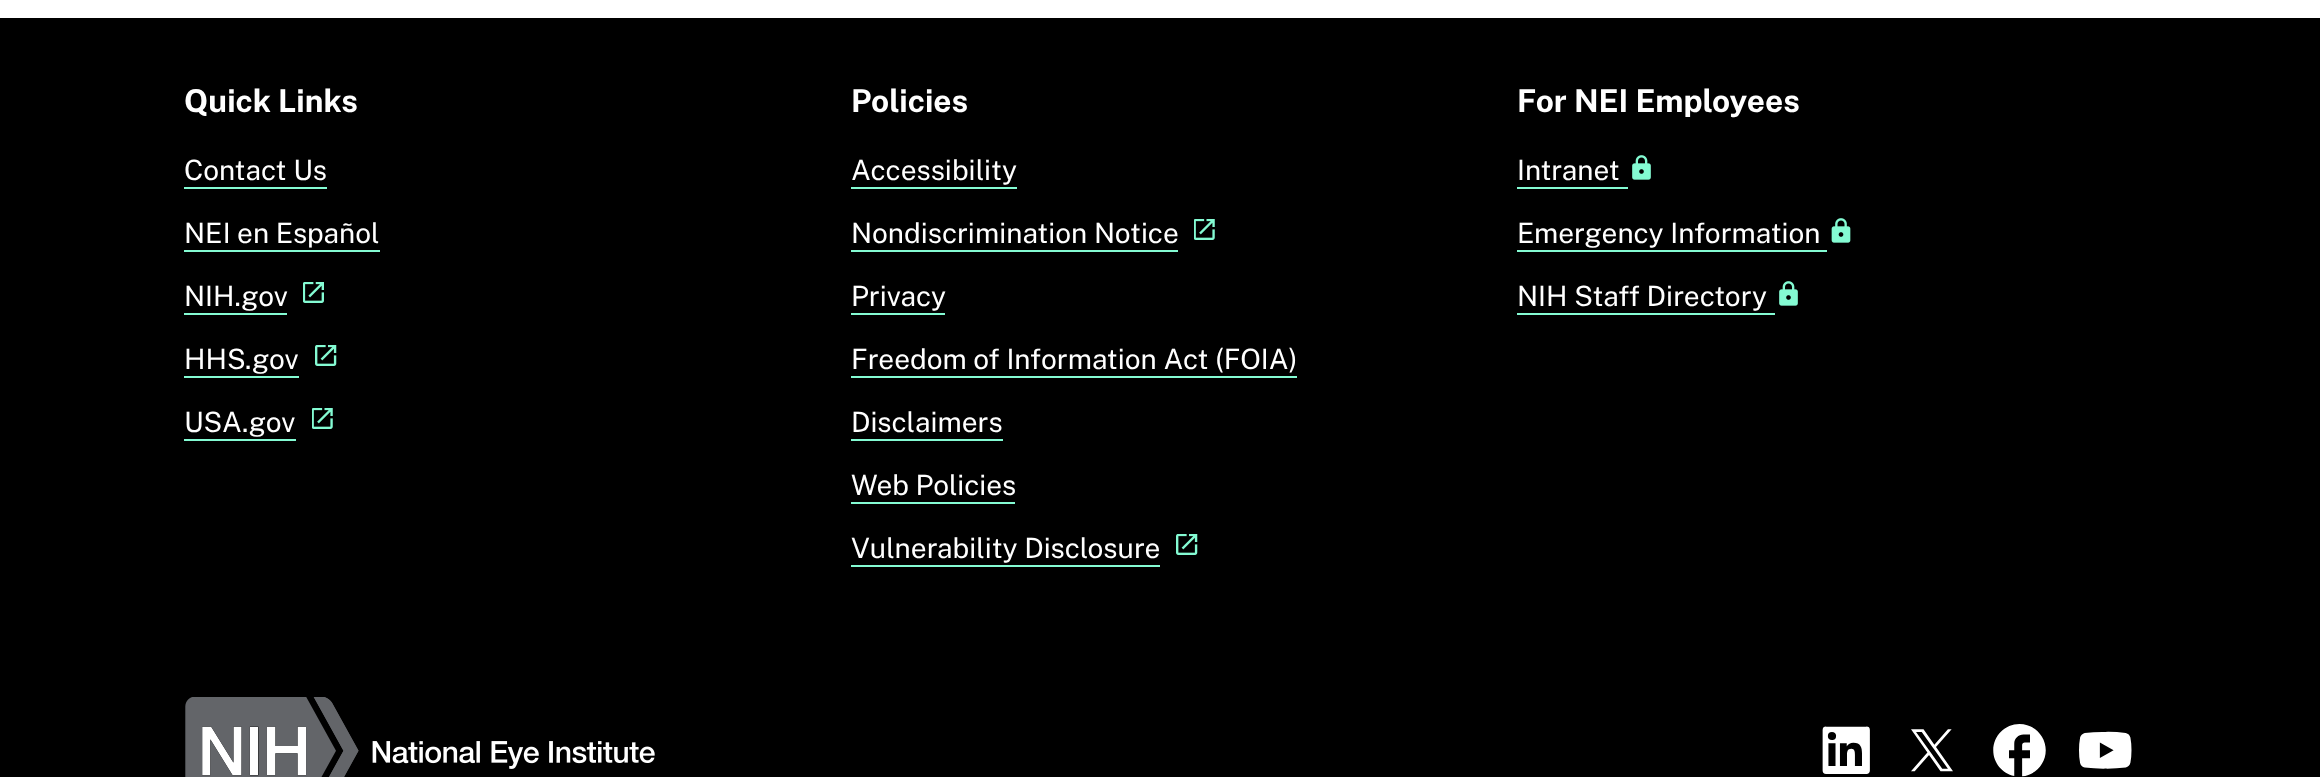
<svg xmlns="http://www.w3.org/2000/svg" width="2320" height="777">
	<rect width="100%" height="100%" fill="#FFFFFF" />
	<rect x="0" y="18" width="2320" height="759" fill="#000000" />
	<text x="184" y="112" font-family="Public Sans" font-size="31.5" font-weight="700" fill="#FFFFFF">Quick Links</text>
	<text x="184" y="180" font-family="Public Sans" font-size="28" fill="#FFFFFF">Contact Us</text>
	<rect x="184" y="187" width="143" height="2" fill="#84FBD3" />
	<text x="184" y="243" font-family="Public Sans" font-size="28" fill="#FFFFFF">NEI en Español</text>
	<rect x="184" y="250" width="196" height="2" fill="#84FBD3" />
	<text x="184" y="306" font-family="Public Sans" font-size="28" fill="#FFFFFF">NIH.gov</text>
	<rect x="184" y="313" width="103" height="2" fill="#84FBD3" />
	<image x="303" y="282" width="21" height="21" href="assets/img1.png" />
	<text x="184" y="369" font-family="Public Sans" font-size="28" fill="#FFFFFF">HHS.gov</text>
	<rect x="184" y="376" width="115" height="2" fill="#84FBD3" />
	<image x="315" y="345" width="22" height="21" href="assets/img2.png" />
	<text x="184" y="432" font-family="Public Sans" font-size="28" fill="#FFFFFF">USA.gov</text>
	<rect x="184" y="439" width="112" height="2" fill="#84FBD3" />
	<image x="312" y="408" width="21" height="21" href="assets/img3.png" />
	<text x="851" y="112" font-family="Public Sans" font-size="31.5" font-weight="700" fill="#FFFFFF">Policies</text>
	<text x="851" y="180" font-family="Public Sans" font-size="28" fill="#FFFFFF">Accessibility</text>
	<rect x="851" y="187" width="166" height="2" fill="#84FBD3" />
	<text x="851" y="243" font-family="Public Sans" font-size="28" fill="#FFFFFF">Nondiscrimination Notice</text>
	<rect x="851" y="250" width="327" height="2" fill="#84FBD3" />
	<image x="1194" y="219" width="21" height="21" href="assets/img3.png" />
	<text x="851" y="306" font-family="Public Sans" font-size="28" fill="#FFFFFF">Privacy</text>
	<rect x="851" y="313" width="94" height="2" fill="#84FBD3" />
	<text x="851" y="369" font-family="Public Sans" font-size="28" fill="#FFFFFF">Freedom of Information Act (FOIA)</text>
	<rect x="851" y="376" width="446" height="2" fill="#84FBD3" />
	<text x="851" y="432" font-family="Public Sans" font-size="28" fill="#FFFFFF">Disclaimers</text>
	<rect x="851" y="439" width="152" height="2" fill="#84FBD3" />
	<text x="851" y="495" font-family="Public Sans" font-size="28" fill="#FFFFFF">Web Policies</text>
	<rect x="851" y="502" width="164" height="2" fill="#84FBD3" />
	<text x="851" y="558" font-family="Public Sans" font-size="28" fill="#FFFFFF">Vulnerability Disclosure</text>
	<rect x="851" y="565" width="309" height="2" fill="#84FBD3" />
	<image x="1176" y="534" width="22" height="21" href="assets/img2.png" />
	<text x="1517" y="112" font-family="Public Sans" font-size="31.5" font-weight="700" fill="#FFFFFF">For NEI Employees</text>
	<text x="1517" y="180" font-family="Public Sans" font-size="28" fill="#FFFFFF">Intranet</text>
	<rect x="1517" y="187" width="111" height="2" fill="#84FBD3" />
	<image x="1632" y="155" width="19" height="25" href="assets/img4.png" />
	<text x="1517" y="243" font-family="Public Sans" font-size="28" fill="#FFFFFF">Emergency Information</text>
	<rect x="1517" y="250" width="310" height="2" fill="#84FBD3" />
	<image x="1831" y="218" width="20" height="25" href="assets/img5.png" />
	<text x="1517" y="306" font-family="Public Sans" font-size="28" fill="#FFFFFF">NIH Staff Directory</text>
	<rect x="1517" y="313" width="258" height="2" fill="#84FBD3" />
	<image x="1779" y="281" width="19" height="25" href="assets/img4.png" />
	<image x="185" y="697" width="470" height="80" href="assets/img6.png" />
	<image x="1822" y="726" width="48" height="48" href="assets/img7.png" />
	<image x="1911" y="729" width="42" height="43" href="assets/img8.png" />
	<image x="1993" y="724" width="53" height="53" href="assets/img9.png" />
	<image x="2079" y="731" width="53" height="38" href="assets/img10.png" />
</svg>
